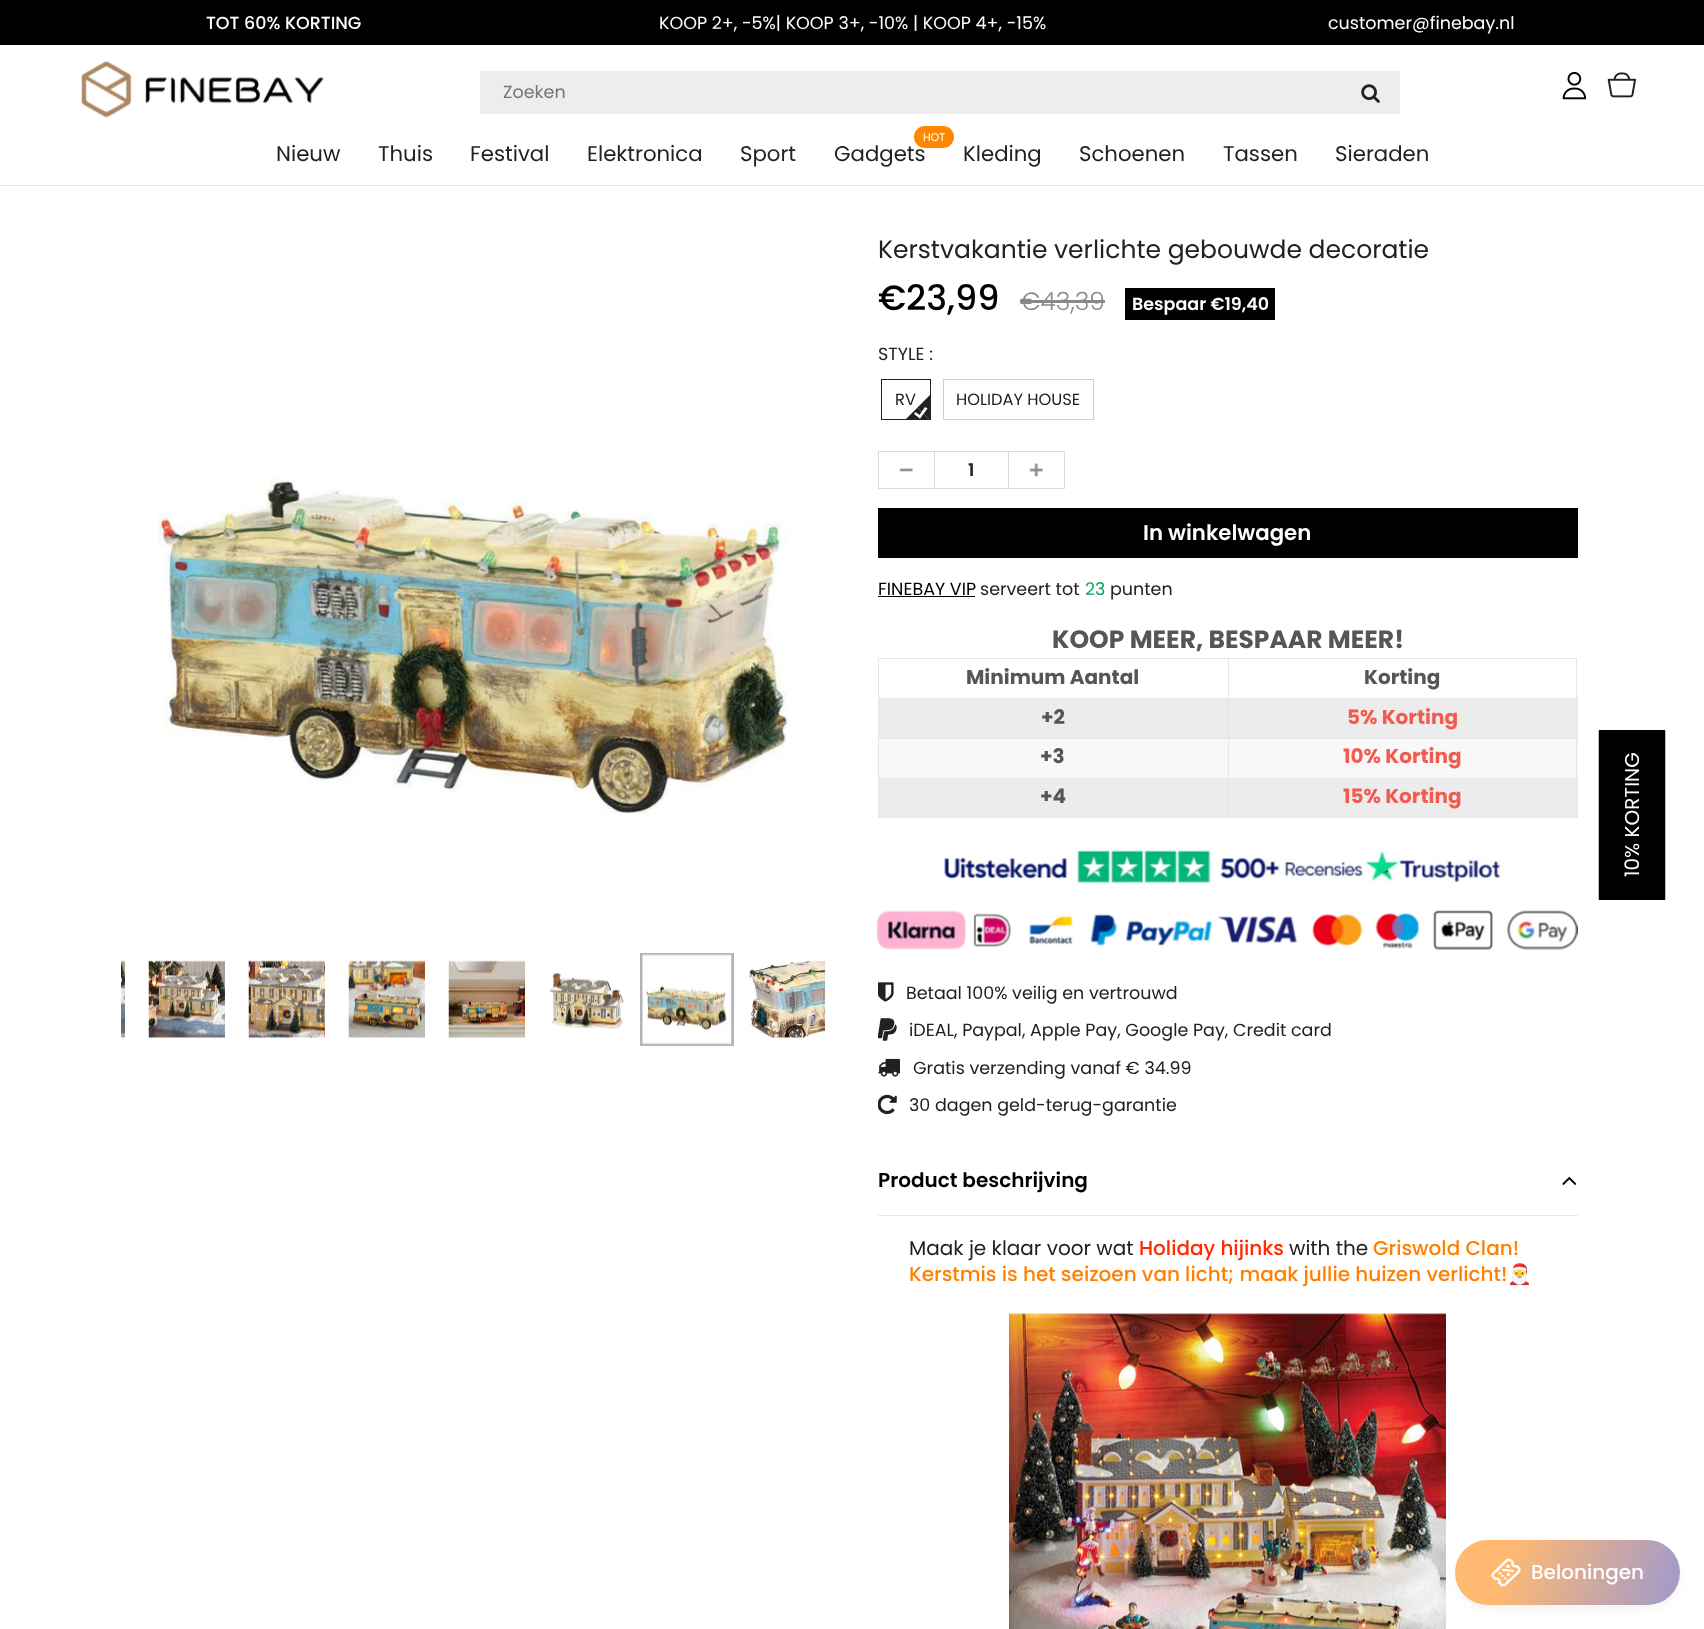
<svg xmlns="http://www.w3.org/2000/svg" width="1704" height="1629">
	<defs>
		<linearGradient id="g1" gradientUnits="userSpaceOnUse" x1="1457" y1="1533" x2="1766" y2="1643"><stop offset="0.17" stop-color="#FFB971" /><stop offset="1" stop-color="#6C88FF" /></linearGradient>
	</defs>
	<rect width="100%" height="100%" fill="#FFFFFF" />
	<rect x="0" y="0" width="1704" height="45" fill="#000000" />
	<text x="206" y="29" font-family="Poppins" font-size="17.5" font-weight="500" fill="#FFFFFF">TOT 60% KORTING</text>
	<g font-family="Poppins" font-size="17.5" fill="#FFFFFF">
		<text x="659" y="29">KOOP 2+, -5%| KOOP 3+, -10% | KOOP 4+, -15%</text>
		<text x="1328" y="29">customer@finebay.nl</text>
	</g>
	<image x="81" y="61" width="243" height="57" href="assets/img1.png" />
	<rect x="480" y="71" width="920" height="43" fill="#EDEDED" />
	<text x="503" y="98" font-family="Poppins" font-size="17.5" fill="#757575">Zoeken</text>
	<image x="1361" y="84" width="19" height="19" href="assets/img2.png" />
	<image x="1562" y="72" width="25" height="28" href="assets/img3.png" />
	<image x="1607" y="72" width="29" height="26" href="assets/img4.png" />
	<rect x="0" y="185" width="1704" height="1" fill="#E7E7E7" />
	<g font-family="Poppins" font-size="21.25" fill="#212121">
		<text x="276" y="161">Nieuw</text>
		<text x="378" y="161">Thuis</text>
		<text x="470" y="161">Festival</text>
		<text x="587" y="161">Elektronica</text>
		<text x="740" y="161">Sport</text>
		<text x="834" y="161">Gadgets</text>
	</g>
	<rect x="914" y="126" width="40" height="22" rx="11" fill="#FF8600" />
	<text x="923" y="141" font-family="Poppins" font-size="11" fill="#FFFFFF">HOT</text>
	<g font-family="Poppins" font-size="21.25" fill="#212121">
		<text x="963" y="161">Kleding</text>
		<text x="1079" y="161">Schoenen</text>
		<text x="1223" y="161">Tassen</text>
		<text x="1335" y="161">Sieraden</text>
	</g>
	<image x="157" y="239" width="668" height="575" href="assets/img5.png" />
	<image x="121" y="960" width="4" height="78" href="assets/img6.png" />
	<image x="148" y="960" width="77" height="78" href="assets/img7.png" />
	<image x="248" y="960" width="77" height="78" href="assets/img8.png" />
	<image x="348" y="960" width="77" height="78" href="assets/img9.png" />
	<image x="448" y="960" width="77" height="78" href="assets/img10.png" />
	<image x="549" y="973" width="75" height="56" href="assets/img11.png" />
	<rect x="641.5" y="954.5" width="91" height="90" fill="none" stroke="#B4B4B4" stroke-width="3" />
	<image x="642" y="954" width="90" height="91" href="assets/img12.png" />
	<image x="748" y="961" width="78" height="77" href="assets/img13.png" />
	<text x="878" y="258" font-family="Poppins" font-size="25" fill="#212121">Kerstvakantie verlichte gebouwde decoratie</text>
	<text x="878" y="310" font-family="Poppins" font-size="35" font-weight="500" fill="#000000">€23,99</text>
	<text x="1020" y="310" font-family="Poppins" font-size="25" font-weight="300" fill="#898989">€43,39</text>
	<rect x="1020" y="300" width="85" height="3" fill="#898989" />
	<rect x="1125" y="288" width="150" height="32" fill="#000000" />
	<text x="1132" y="310" font-family="Poppins" font-size="17.5" font-weight="600" fill="#FFFFFF">Bespaar €19,40</text>
	<text x="878" y="360" font-family="Poppins" font-size="17.5" fill="#212121">STYLE :</text>
	<rect x="881.5" y="379.5" width="49" height="40" fill="none" stroke="#212121" />
	<text x="895" y="405" font-family="Poppins" font-size="16.25" fill="#212121">RV</text>
	<path d="M930 395V420L917.5 407.5Z" fill="#212121" />
	<path d="M930 420H905L917.5 407.5Z" fill="#212121" />
	<path d="M918 417L925 407L927.5 408.5L920 418.5Z" fill="#FFFFFF" />
	<path d="M914 414L915.5 412L921.5 416.5L920 418.5Z" fill="#FFFFFF" />
	<rect x="943.5" y="379.5" width="150" height="40" fill="none" stroke="#CFCFCF" />
	<text x="956" y="405" font-family="Poppins" font-size="16.25" fill="#212121">HOLIDAY HOUSE</text>
	<image x="899" y="468" width="14" height="4" href="assets/img14.png" />
	<rect x="878" y="451" width="56" height="1" fill="#D7DBDB" />
	<rect x="878" y="488" width="56" height="1" fill="#D7DBDB" />
	<rect x="878" y="451" width="1" height="38" fill="#D7DBDB" />
	<rect x="934.5" y="451.5" width="74" height="37" fill="none" stroke="#D7DBDB" />
	<text x="968" y="476" font-family="Poppins" font-size="17.5" font-weight="600" fill="#212121">1</text>
	<image x="1029" y="463" width="14" height="14" href="assets/img15.png" />
	<rect x="1009" y="451" width="56" height="1" fill="#D7DBDB" />
	<rect x="1064" y="451" width="1" height="38" fill="#D7DBDB" />
	<rect x="1009" y="488" width="56" height="1" fill="#D7DBDB" />
	<rect x="878" y="508" width="700" height="50" fill="#000000" />
	<text x="1143" y="540" font-family="Poppins" font-size="21.25" font-weight="600" fill="#FFFFFF">In winkelwagen</text>
	<text x="878" y="595" font-family="Poppins" font-size="17.5" fill="#000000">FINEBAY VIP</text>
	<rect x="878" y="596" width="97" height="1" fill="#000000" />
	<text x="980" y="595" font-family="Poppins" font-size="17.5" fill="#212121">serveert tot</text>
	<text x="1085" y="595" font-family="Poppins" font-size="17.5" fill="#00A65C">23</text>
	<text x="1110" y="595" font-family="Poppins" font-size="17.5" fill="#212121">punten</text>
	<text x="1052" y="648" font-family="Poppins" font-size="25" font-weight="700" fill="#565656">KOOP MEER, BESPAAR MEER!</text>
	<rect x="1228" y="658" width="350" height="1" fill="#E6E6E6" />
	<rect x="1228" y="698" width="350" height="1" fill="#E6E6E6" />
	<rect x="879" y="699" width="699" height="39" fill="#ECECEC" />
	<rect x="1228" y="738" width="350" height="1" fill="#E6E6E6" />
	<rect x="879" y="739" width="699" height="39" fill="#F8F8F8" />
	<rect x="1228" y="778" width="350" height="1" fill="#E6E6E6" />
	<rect x="879" y="779" width="699" height="39" fill="#ECECEC" />
	<rect x="1576" y="778" width="1" height="40" fill="#E6E6E6" />
	<rect x="1228" y="816" width="350" height="1" fill="#E6E6E6" />
	<rect x="1228" y="778" width="1" height="40" fill="#E6E6E6" />
	<rect x="878" y="778" width="351" height="1" fill="#E6E6E6" />
	<rect x="1228" y="738" width="1" height="41" fill="#E6E6E6" />
	<rect x="878" y="738" width="351" height="1" fill="#E6E6E6" />
	<rect x="1228" y="698" width="1" height="41" fill="#E6E6E6" />
	<rect x="878" y="698" width="351" height="1" fill="#E6E6E6" />
	<rect x="1228" y="658" width="1" height="41" fill="#E6E6E6" />
	<rect x="878" y="658" width="351" height="1" fill="#E6E6E6" />
	<rect x="878" y="816" width="351" height="1" fill="#E6E6E6" />
	<rect x="878" y="778" width="1" height="40" fill="#E6E6E6" />
	<rect x="878" y="738" width="1" height="41" fill="#E6E6E6" />
	<rect x="878" y="698" width="1" height="41" fill="#E6E6E6" />
	<rect x="878" y="658" width="1" height="41" fill="#E6E6E6" />
	<text x="966" y="684" font-family="Poppins" font-size="20" font-weight="700" fill="#565656">Minimum Aantal</text>
	<rect x="1576" y="738" width="1" height="41" fill="#E6E6E6" />
	<rect x="1576" y="698" width="1" height="41" fill="#E6E6E6" />
	<rect x="1576" y="658" width="1" height="41" fill="#E6E6E6" />
	<g font-family="Poppins" font-size="20" font-weight="700" fill="#565656">
		<text x="1364" y="684">Korting</text>
		<text x="1041" y="724">+2</text>
	</g>
	<text x="1347" y="724" font-family="Poppins" font-size="20" font-weight="700" fill="#F45B4F">5% Korting</text>
	<text x="1040" y="763" font-family="Poppins" font-size="20" font-weight="700" fill="#565656">+3</text>
	<text x="1343" y="763" font-family="Poppins" font-size="20" font-weight="700" fill="#F45B4F">10% Korting</text>
	<text x="1040" y="803" font-family="Poppins" font-size="20" font-weight="700" fill="#565656">+4</text>
	<text x="1343" y="803" font-family="Poppins" font-size="20" font-weight="700" fill="#F45B4F">15% Korting</text>
	<image x="944" y="848" width="559" height="40" href="assets/img16.png" />
	<image x="877" y="910" width="701" height="40" href="assets/img17.png" />
	<image x="878" y="982" width="16" height="20" href="assets/img18.png" />
	<text x="906" y="999" font-family="Poppins" font-size="17.5" fill="#212121">Betaal 100% veilig en vertrouwd</text>
	<image x="878" y="1018" width="19" height="23" href="assets/img19.png" />
	<text x="909" y="1036" font-family="Poppins" font-size="17.5" fill="#212121">iDEAL, Paypal, Apple Pay, Google Pay, Credit card</text>
	<image x="878" y="1058" width="22" height="19" href="assets/img20.png" />
	<text x="913" y="1074" font-family="Poppins" font-size="17.5" fill="#212121">Gratis verzending vanaf € 34.99</text>
	<image x="878" y="1094" width="19" height="21" href="assets/img21.png" />
	<text x="909" y="1111" font-family="Poppins" font-size="17.5" fill="#212121">30 dagen geld-terug-garantie</text>
	<rect x="878" y="1215" width="700" height="1" fill="#E7E7E7" />
	<text x="878" y="1187" font-family="Poppins" font-size="20" font-weight="600" fill="#000000">Product beschrijving</text>
	<image x="1562" y="1176" width="15" height="9" href="assets/img22.png" />
	<text x="909" y="1255" font-family="Poppins" font-size="20" fill="#212121">Maak je klaar voor wat</text>
	<text x="1139" y="1255" font-family="Poppins" font-size="20" font-weight="500" fill="#FF2A00">Holiday hijinks</text>
	<text x="1289" y="1255" font-family="Poppins" font-size="20" fill="#212121">with the</text>
	<g font-family="Poppins" font-size="20" font-weight="500" fill="#FF8000">
		<text x="1373" y="1255">Griswold Clan!</text>
		<text x="909" y="1281">Kerstmis is het seizoen van licht; maak jullie huizen verlicht!</text>
	</g>
	<text x="1507" y="1281" font-family="Noto Color Emoji" font-size="20" fill="#212121">🎅</text>
	<image x="1009" y="1313" width="437" height="316" href="assets/img23.png" />
	<rect x="1599" y="730" width="66" height="170" fill="#000000" />
	<path d="M1600 898.5V731.5H1664V898.5Z" fill="none" stroke="#000000" stroke-width="2.5" />
	<text x="1639" y="877" transform="rotate(-90 1639 877)" font-family="'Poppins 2'" font-size="20" fill="#FFFFFF">10% KORTING</text>
	<rect x="1458" y="1548" width="220" height="60" rx="30" fill="#444444" fill-opacity="0.08" filter="blur(5px)" />
	<rect x="1455" y="1540" width="225" height="65" rx="32.5" fill="url(#g1)" />
	<image x="1491" y="1558" width="30" height="29" href="assets/img24.png" />
	<text x="1531" y="1579" font-family="Poppins" font-size="20" font-weight="500" fill="#FFFFFF">Beloningen</text>
</svg>
